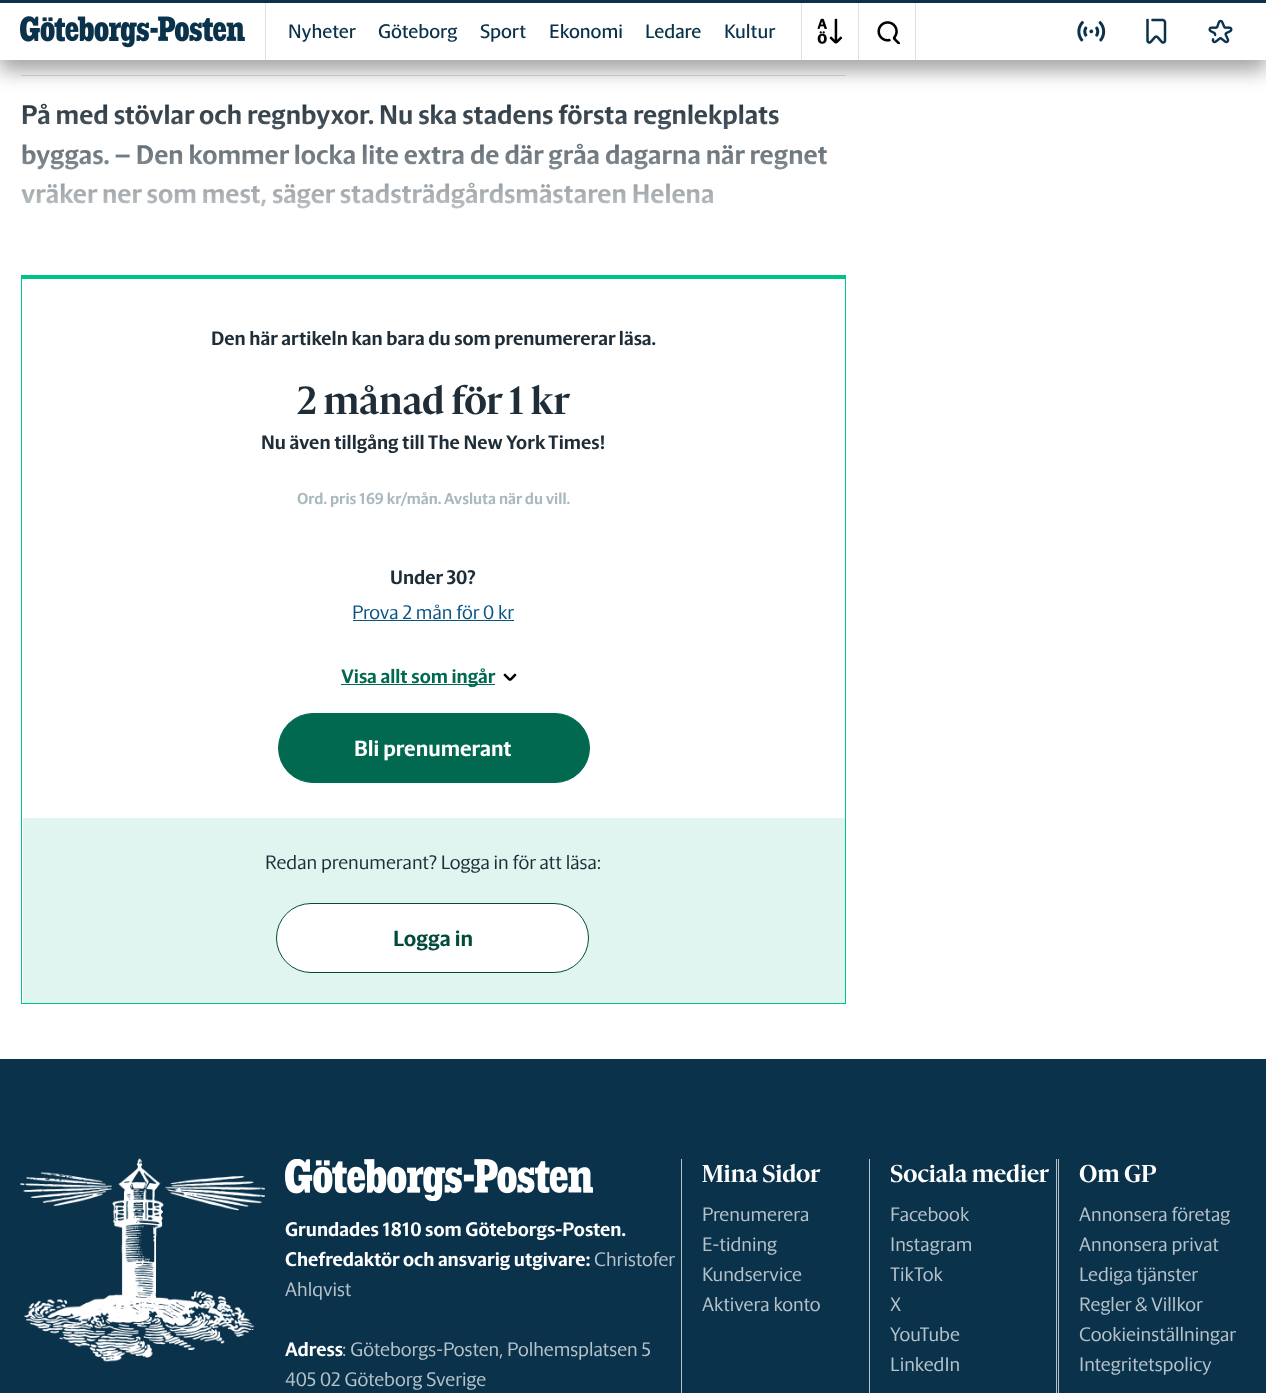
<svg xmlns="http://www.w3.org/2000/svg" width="1266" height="1393">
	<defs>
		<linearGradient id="g1" gradientUnits="userSpaceOnUse" x1="434" y1="96" x2="434" y2="255"><stop offset="0" stop-color="#FFFFFF" stop-opacity="0" /><stop offset="1" stop-color="#FFFFFF" /></linearGradient>
	</defs>
	<rect width="100%" height="100%" fill="#0A324B" />
	<rect x="0" y="60" width="1266" height="999" fill="#FFFFFF" />
	<rect x="21" y="75" width="825" height="1" fill="#DCE1E1" />
	<rect x="0" y="10" width="1266" height="60" fill="#000000" fill-opacity="0.2" filter="blur(10px)" />
	<rect x="0" y="10" width="1266" height="60" fill="#000000" fill-opacity="0.2" filter="blur(10px)" />
	<rect x="0" y="3" width="1266" height="57" fill="#FFFFFF" />
	<rect x="0" y="0" width="1266" height="3" fill="#0A324B" />
	<image x="20" y="16" width="225" height="32" href="assets/img1.png" />
	<rect x="265" y="3" width="1" height="57" fill="#DCE1E1" />
	<g font-family="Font" font-size="20" font-weight="500" fill="#0A324B">
		<text x="288" y="38">Nyheter</text>
		<text x="378" y="38">Göteborg</text>
		<text x="480" y="38">Sport</text>
		<text x="549" y="38">Ekonomi</text>
		<text x="645" y="38">Ledare</text>
		<text x="724" y="38">Kultur</text>
	</g>
	<rect x="858" y="3" width="1" height="57" fill="#DCE1E1" />
	<rect x="801" y="3" width="1" height="57" fill="#DCE1E1" />
	<image x="817" y="18" width="26" height="26" href="assets/img2.png" />
	<rect x="915" y="3" width="1" height="57" fill="#DCE1E1" />
	<image x="877" y="21" width="23" height="23" href="assets/img3.png" />
	<image x="1077" y="20" width="29" height="22" href="assets/img4.png" />
	<image x="1146" y="18" width="21" height="26" href="assets/img5.png" />
	<image x="1208" y="19" width="25" height="25" href="assets/img6.png" />
	<g font-family="Font" font-size="27.5" font-weight="700" fill="#1E2D37">
		<text x="21" y="124">På med stövlar och regnbyxor. Nu ska stadens första regnlekplats</text>
		<text x="21" y="164">byggas. – Den kommer locka lite extra de där gråa dagarna när regnet</text>
		<text x="21" y="203">vräker ner som mest, säger stadsträdgårdsmästaren Helena</text>
	</g>
	<rect x="21" y="103" width="806" height="106" fill="url(#g1)" />
	<rect x="21" y="275" width="825" height="4" fill="#00C389" />
	<rect x="845" y="275" width="1" height="729" fill="#00C389" />
	<rect x="21" y="1003" width="825" height="1" fill="#00C389" />
	<rect x="21" y="275" width="1" height="729" fill="#00C389" />
	<rect x="23" y="818" width="822" height="185" fill="#E1F5F0" />
	<text x="211" y="345" font-family="Font" font-size="20" font-weight="700" fill="#1E2D37">Den här artikeln kan bara du som prenumererar läsa.</text>
	<text x="297" y="414" font-family="'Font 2'" font-size="40" font-weight="700" fill="#1E2D37">2 månad för 1 kr</text>
	<text x="261" y="449" font-family="Font" font-size="20" font-weight="700" fill="#1E2D37">Nu även tillgång till The New York Times!</text>
	<text x="297" y="504" font-family="Font" font-size="16.25" font-weight="700" fill="#AAB9BE">Ord. pris 169 kr/mån. Avsluta när du vill.</text>
	<text x="390" y="584" font-family="Font" font-size="20" font-weight="700" fill="#1E2D37">Under 30?</text>
	<text x="352" y="619" font-family="Font" font-size="20" font-weight="300" fill="#0A5582">Prova 2 mån för 0 kr</text>
	<rect x="353" y="620" width="161" height="1" fill="#0A5582" />
	<rect x="341" y="684" width="154" height="1" fill="#006950" />
	<text x="341" y="683" font-family="Font" font-size="20" font-weight="700" fill="#006950">Visa allt som ingår</text>
	<image x="503" y="673" width="14" height="8" href="assets/img7.png" />
	<rect x="278.5" y="713.5" width="311" height="69" rx="34.5" fill="#006950" stroke="#006950" />
	<text x="354" y="756" font-family="Font" font-size="22.5" font-weight="700" fill="#FFFFFF">Bli prenumerant</text>
	<text x="265" y="869" font-family="Font" font-size="20" font-weight="300" fill="#1E2D37">Redan prenumerant? Logga in för att läsa:</text>
	<rect x="276.5" y="903.5" width="312" height="69" rx="34.5" fill="#FFFFFF" stroke="#024B3A" />
	<text x="393" y="946" font-family="Font" font-size="22.5" font-weight="700" fill="#024B3A">Logga in</text>
	<image x="20" y="1158" width="245" height="204" href="assets/img8.png" />
	<image x="285" y="1159" width="308" height="42" href="assets/img9.png" />
	<g font-family="Font" font-size="20" font-weight="700" fill="#FFFFFF">
		<text x="285" y="1236">Grundades 1810 som Göteborgs-Posten.</text>
		<text x="285" y="1266">Chefredaktör och ansvarig utgivare:</text>
	</g>
	<g font-family="Font" font-size="20" font-weight="300" fill="#B6C2C9">
		<text x="594" y="1266">Christofer</text>
		<text x="285" y="1296">Ahlqvist</text>
	</g>
	<text x="285" y="1356" font-family="Font" font-size="20" font-weight="700" fill="#FFFFFF">Adress</text>
	<g font-family="Font" font-size="20" font-weight="300" fill="#B6C2C9">
		<text x="342" y="1356">: Göteborgs-Posten, Polhemsplatsen 5</text>
		<text x="285" y="1386">405 02 Göteborg Sverige</text>
	</g>
	<rect x="681" y="1159" width="1" height="234" fill="#B6C2C9" />
	<text x="702" y="1182" font-family="'Font 2'" font-size="25" font-weight="700" fill="#FFFFFF">Mina Sidor</text>
	<g font-family="Font" font-size="20" font-weight="300" fill="#B6C2C9">
		<text x="702" y="1221">Prenumerera</text>
		<text x="702" y="1251">E-tidning</text>
		<text x="702" y="1281">Kundservice</text>
		<text x="702" y="1311">Aktivera konto</text>
	</g>
	<rect x="1056" y="1159" width="1" height="234" fill="#B6C2C9" />
	<rect x="869" y="1159" width="1" height="234" fill="#B6C2C9" />
	<text x="890" y="1182" font-family="'Font 2'" font-size="25" font-weight="700" fill="#FFFFFF">Sociala medier</text>
	<g font-family="Font" font-size="20" font-weight="300" fill="#B6C2C9">
		<text x="890" y="1221">Facebook</text>
		<text x="890" y="1251">Instagram</text>
		<text x="890" y="1281">TikTok</text>
		<text x="890" y="1311">X</text>
		<text x="890" y="1341">YouTube</text>
		<text x="890" y="1371">LinkedIn</text>
	</g>
	<rect x="1058" y="1159" width="1" height="234" fill="#B6C2C9" />
	<text x="1079" y="1182" font-family="'Font 2'" font-size="25" font-weight="700" fill="#FFFFFF">Om GP</text>
	<g font-family="Font" font-size="20" font-weight="300" fill="#B6C2C9">
		<text x="1079" y="1221">Annonsera företag</text>
		<text x="1079" y="1251">Annonsera privat</text>
		<text x="1079" y="1281">Lediga tjänster</text>
		<text x="1079" y="1311">Regler &amp; Villkor</text>
		<text x="1079" y="1341">Cookieinställningar</text>
		<text x="1079" y="1371">Integritetspolicy</text>
	</g>
</svg>
